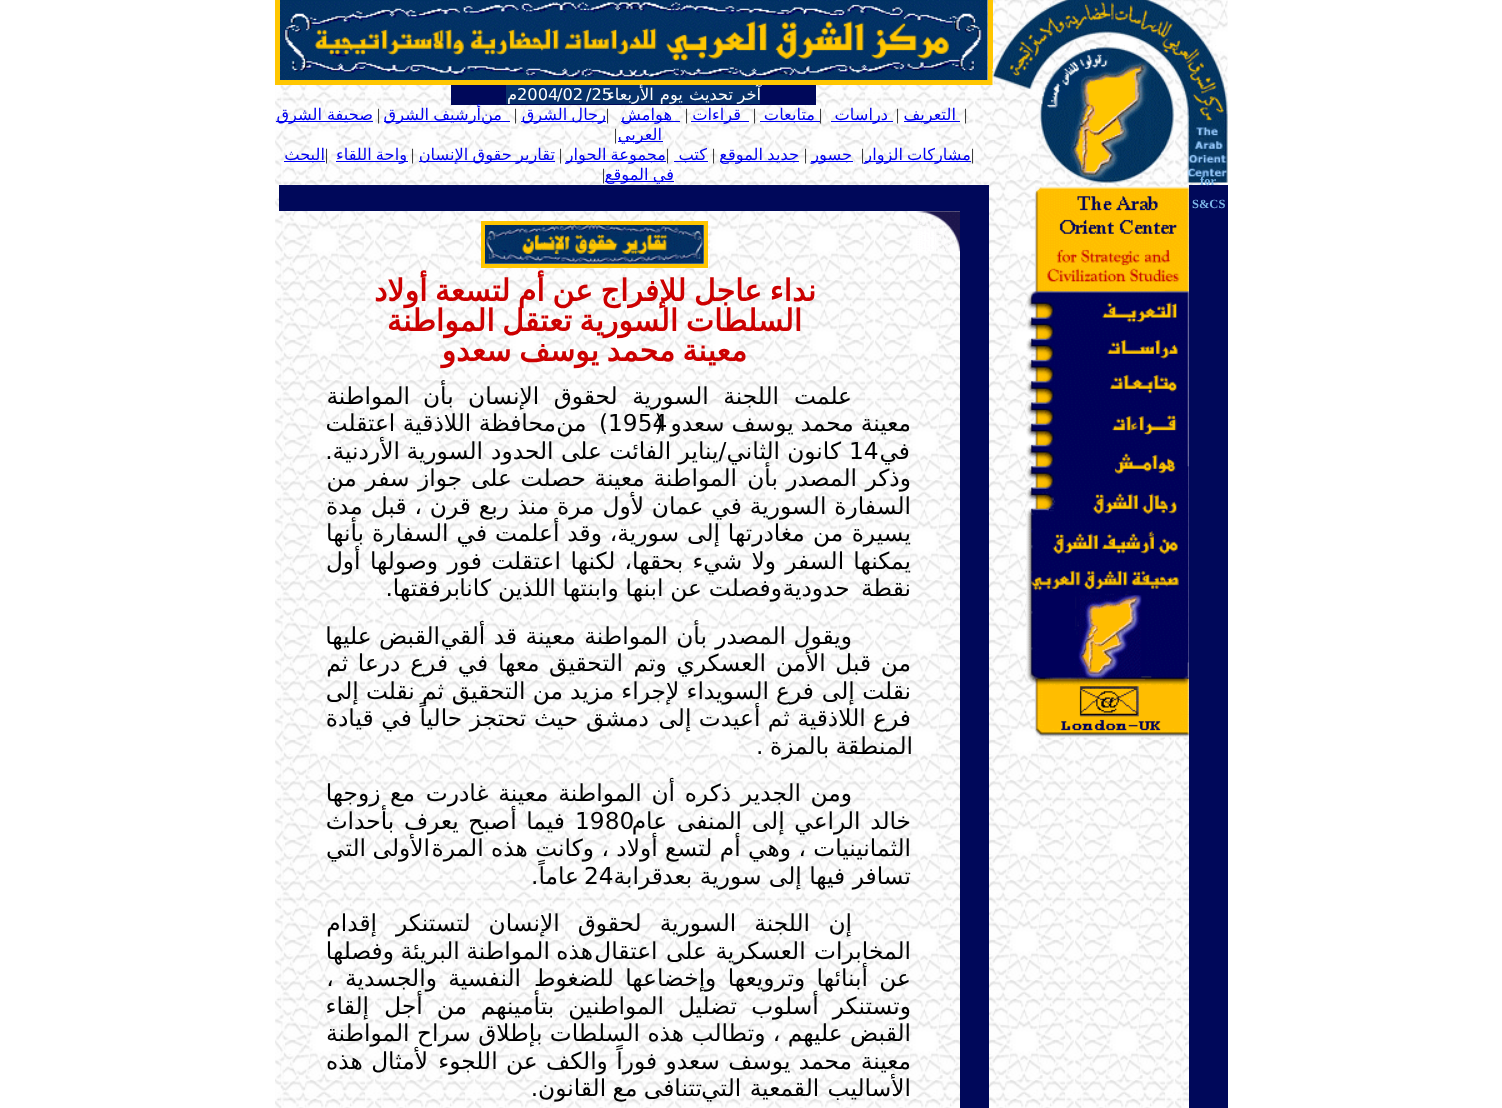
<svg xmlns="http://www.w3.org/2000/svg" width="1502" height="1108">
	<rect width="100%" height="100%" fill="#FFFFFF" />
	<image x="275" y="0" width="953" height="1108" href="assets/img1.png" />
	<rect x="277" y="-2" width="714" height="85" fill="none" stroke="#FFC600" stroke-width="4" />
	<image x="992" y="0" width="236" height="183" href="assets/img2.png" />
	<rect x="279.5" y="-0.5" width="709" height="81" fill="none" stroke="#FFC600" />
	<image x="280" y="0" width="708" height="80" href="assets/img3.png" />
	<rect x="451" y="85" width="365" height="20" fill="#00085A" />
	<rect x="506" y="85" width="254" height="19" fill="#08316B" />
	<text x="761" y="100" font-family="DejaVu Sans" font-size="16.25" direction="rtl" fill="#FFFFFF">آخر</text>
	<text x="586" y="100" font-family="DejaVu Sans" font-size="16.25" fill="#FFFFFF">/25</text>
	<text x="733" y="100" word-spacing="1" font-family="DejaVu Sans" font-size="16.25" direction="rtl" fill="#FFFFFF">تحديث يوم الأربعاء</text>
	<g font-family="DejaVu Sans" font-size="16.25" fill="#FFFFFF">
		<text x="517" y="100">2004</text>
		<text x="557" y="100">/02</text>
	</g>
	<text x="517" y="100" font-family="DejaVu Sans" font-size="16.25" direction="rtl" fill="#FFFFFF">م</text>
	<text x="964" y="120" font-family="Liberation Serif" font-size="16.25" fill="#000000">|</text>
	<rect x="904" y="121" width="56" height="1" fill="#0000EE" />
	<text x="956" y="120" font-family="DejaVu Sans" font-size="16.25" direction="rtl" fill="#0000EE">التعريف</text>
	<text x="896" y="120" font-family="Liberation Serif" font-size="16.25" fill="#000000">|</text>
	<rect x="831" y="121" width="62" height="1" fill="#0000EE" />
	<text x="888" y="120" font-family="DejaVu Sans" font-size="16.25" direction="rtl" fill="#0000EE">دراسات</text>
	<text x="819" y="120" font-family="Liberation Serif" font-size="16.25" fill="#000000">|</text>
	<rect x="760" y="121" width="60" height="1" fill="#0000EE" />
	<text x="815" y="120" font-family="DejaVu Sans" font-size="16.25" direction="rtl" fill="#0000EE">متابعات</text>
	<text x="753" y="120" font-family="Liberation Serif" font-size="16.25" fill="#000000">|</text>
	<rect x="691" y="121" width="58" height="1" fill="#0000EE" />
	<text x="741" y="120" font-family="DejaVu Sans" font-size="16.25" direction="rtl" fill="#0000EE">قراءات</text>
	<text x="685" y="120" font-family="Liberation Serif" font-size="16.25" fill="#000000">|</text>
	<rect x="621" y="121" width="59" height="1" fill="#0000EE" />
	<text x="672" y="120" font-family="DejaVu Sans" font-size="16.25" direction="rtl" fill="#0000EE">هوامش</text>
	<text x="606" y="120" font-family="Liberation Serif" font-size="16.25" fill="#000000">|</text>
	<rect x="521" y="121" width="85" height="1" fill="#0000EE" />
	<text x="606" y="120" word-spacing="-1" font-family="DejaVu Sans" font-size="16.25" direction="rtl" fill="#0000EE">رجال الشرق</text>
	<text x="514" y="120" font-family="Liberation Serif" font-size="16.25" fill="#000000">|</text>
	<rect x="384" y="121" width="126" height="1" fill="#0000EE" />
	<g font-family="DejaVu Sans" font-size="16.25" direction="rtl" fill="#0000EE">
		<text x="502" y="120">من</text>
		<text x="481" y="120" word-spacing="-1">أرشيف الشرق</text>
	</g>
	<text x="377" y="120" font-family="Liberation Serif" font-size="16.25" fill="#000000">|</text>
	<rect x="276" y="121" width="97" height="1" fill="#0000EE" />
	<g font-family="DejaVu Sans" font-size="16.25" direction="rtl" fill="#0000EE">
		<text x="373" y="120">صحيفة</text>
		<text x="322" y="120">الشرق</text>
	</g>
	<rect x="618" y="141" width="45" height="1" fill="#0000EE" />
	<text x="662" y="140" font-family="DejaVu Sans" font-size="16.25" direction="rtl" fill="#0000EE">العربي</text>
	<g font-family="Liberation Serif" font-size="16.25" fill="#000000">
		<text x="614" y="140">|</text>
		<text x="971" y="160">|</text>
	</g>
	<rect x="865" y="161" width="106" height="1" fill="#0000EE" />
	<g font-family="DejaVu Sans" font-size="16.25" direction="rtl" fill="#0000EE">
		<text x="971" y="160">مشاركات</text>
		<text x="903" y="160">الزوار</text>
	</g>
	<text x="861" y="160" font-family="Liberation Serif" font-size="16.25" fill="#000000">|</text>
	<rect x="811" y="161" width="42" height="1" fill="#0000EE" />
	<text x="852" y="160" font-family="DejaVu Sans" font-size="16.25" direction="rtl" fill="#0000EE">جسور</text>
	<text x="804" y="160" font-family="Liberation Serif" font-size="16.25" fill="#000000">|</text>
	<rect x="720" y="161" width="79" height="1" fill="#0000EE" />
	<g font-family="DejaVu Sans" font-size="16.25" direction="rtl" fill="#0000EE">
		<text x="799" y="160">جديد</text>
		<text x="763" y="160">الموقع</text>
	</g>
	<text x="712" y="160" font-family="Liberation Serif" font-size="16.25" fill="#000000">|</text>
	<rect x="674" y="161" width="34" height="1" fill="#0000EE" />
	<text x="707" y="160" font-family="DejaVu Sans" font-size="16.25" direction="rtl" fill="#0000EE">كتب</text>
	<text x="666" y="160" font-family="Liberation Serif" font-size="16.25" fill="#000000">|</text>
	<rect x="566" y="161" width="100" height="1" fill="#0000EE" />
	<text x="666" y="160" word-spacing="-1" font-family="DejaVu Sans" font-size="16.25" direction="rtl" fill="#0000EE">مجموعة الحوار</text>
	<text x="559" y="160" font-family="Liberation Serif" font-size="16.25" fill="#000000">|</text>
	<rect x="419" y="161" width="136" height="1" fill="#0000EE" />
	<text x="555" y="160" word-spacing="-1" font-family="DejaVu Sans" font-size="16.25" direction="rtl" fill="#0000EE">تقارير حقوق الإنسان</text>
	<text x="411" y="160" font-family="Liberation Serif" font-size="16.25" fill="#000000">|</text>
	<rect x="336" y="161" width="72" height="1" fill="#0000EE" />
	<text x="407" y="160" word-spacing="-1" font-family="DejaVu Sans" font-size="16.25" direction="rtl" fill="#0000EE">واحة اللقاء</text>
	<text x="325" y="160" font-family="Liberation Serif" font-size="16.25" fill="#000000">|</text>
	<rect x="284" y="161" width="41" height="1" fill="#0000EE" />
	<text x="325" y="160" font-family="DejaVu Sans" font-size="16.25" direction="rtl" fill="#0000EE">البحث</text>
	<rect x="605" y="181" width="69" height="1" fill="#0000EE" />
	<text x="674" y="180" word-spacing="-1" font-family="DejaVu Sans" font-size="16.25" direction="rtl" fill="#0000EE">في الموقع</text>
	<text x="602" y="180" font-family="Liberation Serif" font-size="16.25" fill="#000000">|</text>
	<rect x="1189" y="185" width="39" height="923" fill="#00085A" />
	<g font-family="Liberation Serif" font-size="12.5" font-weight="700" fill="#7BB5E7">
		<text x="1200" y="185">for</text>
		<text x="1192" y="208">S&amp;CS</text>
	</g>
	<image x="1025" y="186" width="164" height="552" href="assets/img4.png" />
	<rect x="960" y="185" width="29" height="923" fill="#00085A" />
	<rect x="279" y="185" width="681" height="26" fill="#00085A" />
	<image x="916" y="211" width="44" height="41" href="assets/img5.png" />
	<rect x="482.5" y="222.5" width="224" height="44" fill="none" stroke="#FFC600" stroke-width="3" />
	<rect x="484.5" y="224.5" width="220" height="40" fill="none" stroke="#FFC600" />
	<image x="485" y="225" width="219" height="39" href="assets/img6.png" />
	<g font-family="DejaVu Sans" font-size="30" font-weight="700" direction="rtl" fill="#CC0000">
		<text x="816" y="301">نداء</text>
		<text x="762" y="301" word-spacing="-2">عاجل للإفراج عن أم لتسعة أولاد</text>
		<text x="802" y="331">السلطات</text>
		<text x="678" y="331" word-spacing="-2">السورية تعتقل المواطنة</text>
		<text x="747" y="361">معينة</text>
		<text x="675" y="361" word-spacing="-2">محمد يوسف سعدو</text>
	</g>
	<g font-family="DejaVu Sans" font-size="23.3" direction="rtl" fill="#000000">
		<text x="852" y="404">علمت</text>
		<text x="779" y="404" word-spacing="7">اللجنة السورية لحقوق الإنسان بأن</text>
		<text x="410" y="404">المواطنة</text>
	</g>
	<text x="608" y="431" font-family="DejaVu Sans" font-size="23.3" fill="#000000">1954</text>
	<g font-family="DejaVu Sans" font-size="23.3" direction="rtl" fill="#000000">
		<text x="911" y="431" word-spacing="-0.5">معينة محمد يوسف سعدو (</text>
		<text x="608" y="431" word-spacing="5">) من</text>
		<text x="556" y="431">محافظة اللاذقية اعتقلت</text>
		<text x="910" y="459">في</text>
	</g>
	<text x="849" y="459" font-family="DejaVu Sans" font-size="23.3" fill="#000000">14</text>
	<g font-family="DejaVu Sans" font-size="23.3" direction="rtl" fill="#000000">
		<text x="841" y="459">كانون</text>
		<text x="780" y="459">الثاني/يناير الفائت على الحدود</text>
		<text x="483" y="459" word-spacing="-1">السورية الأردنية.</text>
		<text x="911" y="486" word-spacing="1">وذكر المصدر بأن</text>
		<text x="737" y="486" word-spacing="1.25">المواطنة معينة حصلت على جواز سفر من</text>
		<text x="911" y="514" word-spacing="0.5">السفارة السورية في عمان لأول مرة منذ</text>
		<text x="509" y="514" word-spacing="0.5">ربع قرن ، قبل مدة</text>
		<text x="911" y="541" word-spacing="1">يسيرة من مغادرتها</text>
		<text x="720" y="541" word-spacing="0.5">إلى سورية، وقد أعلمت في السفارة بأنها</text>
		<text x="911" y="569" word-spacing="1.75">يمكنها السفر ولا شيء بحقها، لكنها</text>
		<text x="561" y="569" word-spacing="2">اعتقلت فور وصولها أول</text>
		<text x="911" y="596" word-spacing="4">نقطة حدودية</text>
		<text x="782" y="596" word-spacing="-0.5">وفصلت عن ابنها وابنتها اللذين كانا</text>
		<text x="460" y="596">برفقتها.</text>
		<text x="852" y="644">ويقول</text>
		<text x="786" y="644" word-spacing="1">المصدر بأن المواطنة معينة قد ألقي</text>
		<text x="440" y="644">القبض عليها</text>
		<text x="911" y="671" word-spacing="2.25">من قبل الأمن العسكري وتم</text>
		<text x="623" y="671" word-spacing="2.25">التحقيق معها في فرع درعا ثم</text>
		<text x="911" y="699">نقلت إلى</text>
		<text x="814" y="699" word-spacing="-0.25">فرع السويداء لإجراء مزيد من التحقيق</text>
		<text x="444" y="699" word-spacing="-0.25">ثم نقلت إلى</text>
		<text x="911" y="726">فرع اللاذقية ثم أعيدت إلى</text>
		<text x="649" y="726" word-spacing="0.25">دمشق حيث تحتجز حالياً في قيادة</text>
		<text x="913" y="754" word-spacing="-1">المنطقة بالمزة .</text>
		<text x="852" y="801">ومن</text>
		<text x="801" y="801" word-spacing="2.25">الجدير ذكره أن المواطنة معينة غادرت</text>
		<text x="415" y="801" word-spacing="2.25">مع زوجها</text>
	</g>
	<text x="575" y="829" font-family="DejaVu Sans" font-size="23.3" fill="#000000">1980</text>
	<g font-family="DejaVu Sans" font-size="23.3" direction="rtl" fill="#000000">
		<text x="911" y="829" word-spacing="2.25">خالد الراعي إلى المنفى عام</text>
		<text x="565" y="829" word-spacing="2.25">فيما أصبح يعرف بأحداث</text>
		<text x="911" y="856">الثمانينيات</text>
		<text x="806" y="856">، وهي أم لتسع أولاد ، وكانت هذه المرة</text>
		<text x="430" y="856" word-spacing="-1">الأولى التي</text>
		<text x="911" y="884">تسافر فيها إلى سورية بعد</text>
		<text x="663" y="884">قرابة</text>
	</g>
	<text x="584" y="884" font-family="DejaVu Sans" font-size="23.3" fill="#000000">24</text>
	<g font-family="DejaVu Sans" font-size="23.3" direction="rtl" fill="#000000">
		<text x="579" y="884">عاماً.</text>
		<text x="852" y="931">إن</text>
		<text x="810" y="931" word-spacing="10.5">اللجنة السورية لحقوق الإنسان لتستنكر</text>
		<text x="377" y="931">إقدام</text>
		<text x="911" y="959" word-spacing="1">المخابرات العسكرية على اعتقال</text>
		<text x="593" y="959" word-spacing="-1">هذه المواطنة البريئة وفصلها</text>
		<text x="911" y="986">عن</text>
		<text x="868" y="986" word-spacing="4">أبنائها وترويعها وإخضاعها للضغوط</text>
		<text x="521" y="986" word-spacing="4">النفسية والجسدية ،</text>
		<text x="911" y="1014" word-spacing="6.5">وتستنكر أسلوب</text>
		<text x="737" y="1014" word-spacing="6.5">تضليل المواطنين بتأمينهم من أجل</text>
		<text x="369" y="1014">إلقاء</text>
		<text x="911" y="1041">القبض عليهم ، وتطالب هذه</text>
		<text x="640" y="1041">السلطات بإطلاق سراح المواطنة</text>
		<text x="911" y="1069">معينة</text>
		<text x="852" y="1069" word-spacing="1">محمد يوسف سعدو فوراً والكف عن اللجوء</text>
		<text x="428" y="1069" word-spacing="1">لأمثال هذه</text>
		<text x="911" y="1096" word-spacing="1">الأساليب القمعية التي</text>
		<text x="702" y="1096" word-spacing="-1">تتنافى مع القانون.</text>
	</g>
</svg>
